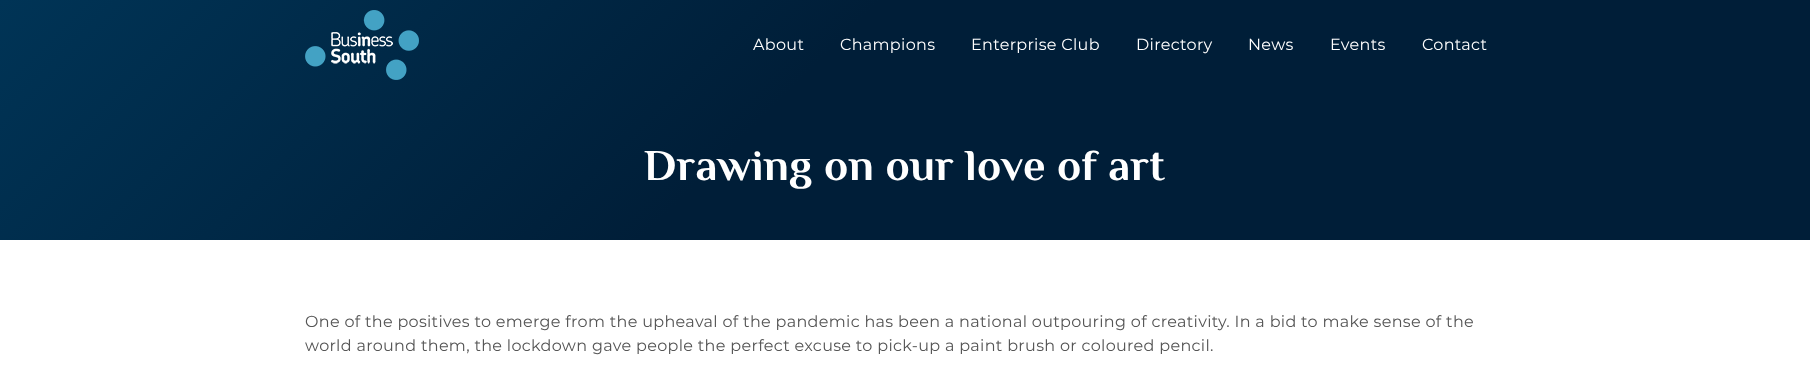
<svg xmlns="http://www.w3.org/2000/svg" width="1810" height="369">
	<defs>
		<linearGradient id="g1" gradientUnits="userSpaceOnUse" x1="392" y1="-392" x2="1418" y2="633"><stop offset="0" stop-color="#003456" /><stop offset="0.43" stop-color="#001E38" /></linearGradient>
	</defs>
	<rect width="100%" height="100%" fill="#FFFFFF" />
	<rect x="0" y="0" width="1810" height="240" fill="url(#g1)" />
	<image x="305" y="10" width="114" height="70" href="assets/img1.png" />
	<g font-family="Montserrat" font-size="16" letter-spacing="0.32" fill="#FFFFFF">
		<text x="753" y="50">About</text>
		<text x="840" y="50">Champions</text>
		<text x="971" y="50">Enterprise Club</text>
		<text x="1136" y="50">Directory</text>
		<text x="1248" y="50">News</text>
		<text x="1330" y="50">Events</text>
		<text x="1422" y="50">Contact</text>
	</g>
	<text x="644" y="180" font-family="Philosopher" font-size="44" font-weight="700" letter-spacing="0.32" fill="#FFFFFF">Drawing on our love of art</text>
	<g font-family="Montserrat" font-size="16" letter-spacing="0.32" fill="#555555">
		<text x="305" y="327">One of the positives to emerge from the upheaval of the pandemic has been a national outpouring of creativity. In a bid to make sense of the</text>
		<text x="305" y="351">world around them, the lockdown gave people the perfect excuse to pick-up a paint brush or coloured pencil.</text>
	</g>
</svg>
